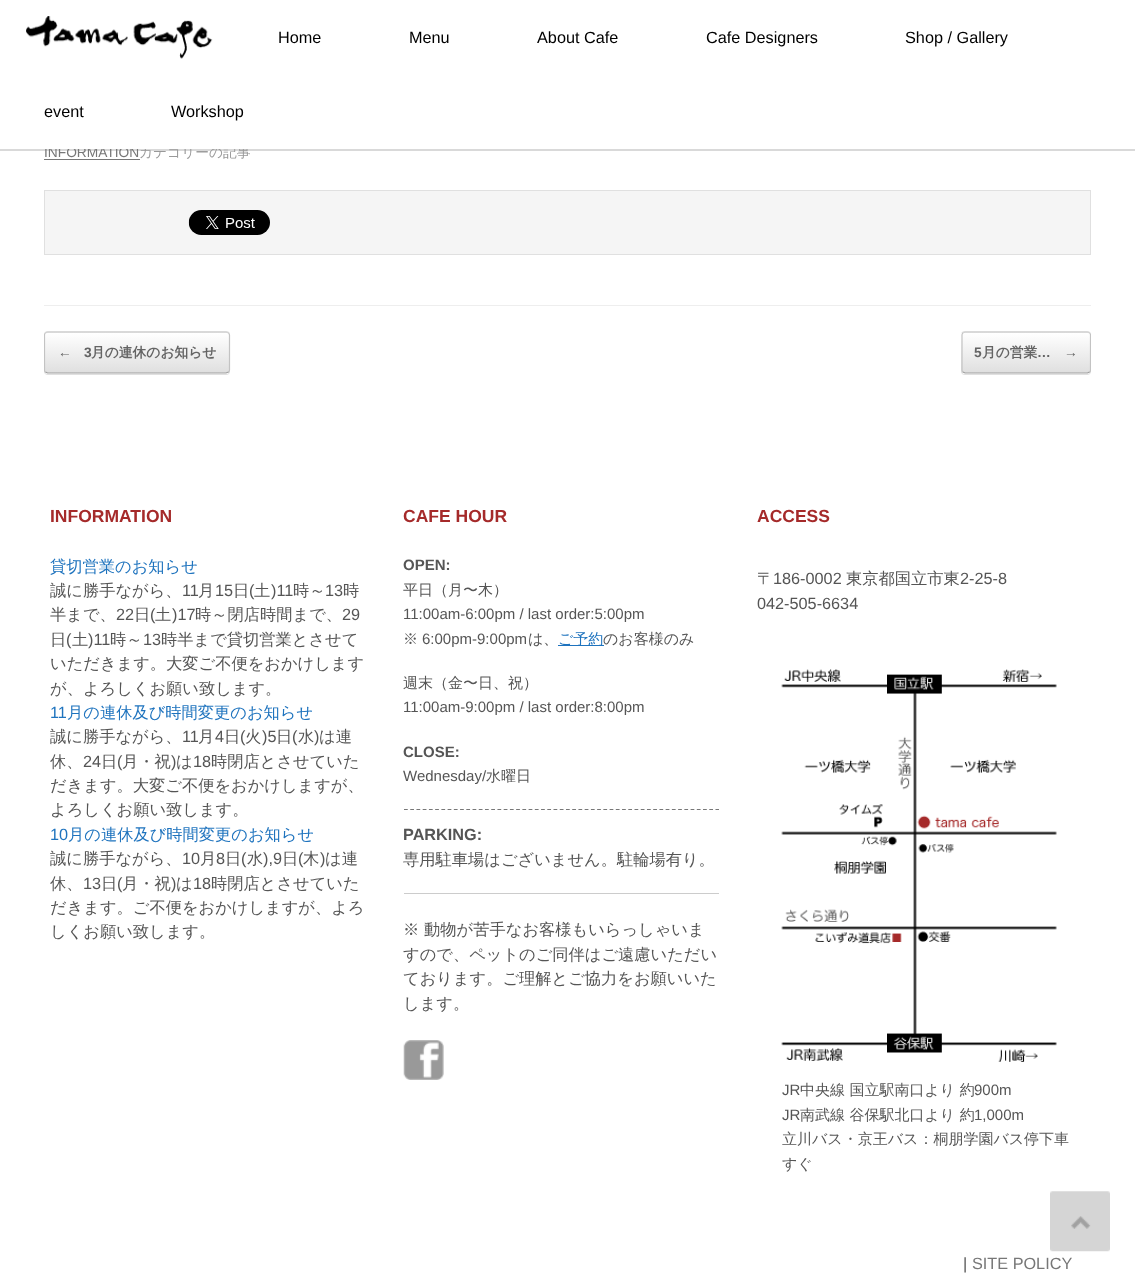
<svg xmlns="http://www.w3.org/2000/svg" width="1135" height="1276">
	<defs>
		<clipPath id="clip1"><rect x="44" y="331" width="186" height="43" rx="4" /></clipPath>
		<linearGradient id="g1" gradientUnits="userSpaceOnUse" x1="45" y1="333" x2="45" y2="293"><stop offset="0" stop-color="#DFDFDF" /><stop offset="1" stop-color="#FFFFFF" /></linearGradient>
		<linearGradient id="g2" gradientUnits="userSpaceOnUse" x1="45" y1="373" x2="45" y2="333"><stop offset="0" stop-color="#DFDFDF" /><stop offset="1" stop-color="#FFFFFF" /></linearGradient>
		<linearGradient id="g3" gradientUnits="userSpaceOnUse" x1="45" y1="413" x2="45" y2="373"><stop offset="0" stop-color="#DFDFDF" /><stop offset="1" stop-color="#FFFFFF" /></linearGradient>
		<clipPath id="clip2"><rect x="44" y="331" width="1047" height="43" /></clipPath>
		<clipPath id="clip3"><rect x="961" y="331" width="130" height="43" rx="4" /></clipPath>
		<linearGradient id="g4" gradientUnits="userSpaceOnUse" x1="963" y1="333" x2="963" y2="293"><stop offset="0" stop-color="#DFDFDF" /><stop offset="1" stop-color="#FFFFFF" /></linearGradient>
		<linearGradient id="g5" gradientUnits="userSpaceOnUse" x1="963" y1="373" x2="963" y2="333"><stop offset="0" stop-color="#DFDFDF" /><stop offset="1" stop-color="#FFFFFF" /></linearGradient>
		<linearGradient id="g6" gradientUnits="userSpaceOnUse" x1="963" y1="413" x2="963" y2="373"><stop offset="0" stop-color="#DFDFDF" /><stop offset="1" stop-color="#FFFFFF" /></linearGradient>
	</defs>
	<rect width="100%" height="100%" fill="#FFFFFF" />
	<rect x="0" y="3" width="1135" height="148" fill="#000000" fill-opacity="0.15" filter="blur(0.5px)" />
	<text x="44" y="157" font-family="Liberation Sans" font-size="13.75" fill="#777777">INFORMATION</text>
	<text x="139" y="157" font-family="WenQuanYi Zen Hei" font-size="13.75" font-weight="500" fill="#999999">カテゴリーの記事</text>
	<rect x="0" y="2" width="1135" height="147" fill="#FFFFFF" />
	<image x="26" y="16" width="187" height="43" href="assets/img1.png" />
	<g font-family="Liberation Sans" font-size="16.25" fill="#000000">
		<text x="278" y="43">Home</text>
		<text x="409" y="43">Menu</text>
		<text x="537" y="43">About Cafe</text>
		<text x="706" y="43">Cafe Designers</text>
		<text x="905" y="43">Shop / Gallery</text>
		<text x="44" y="117">event</text>
		<text x="171" y="117">Workshop</text>
	</g>
	<rect x="44" y="305" width="1047" height="1" fill="#EEEEEE" />
	<rect x="44" y="159" width="96" height="1" fill="#777777" />
	<rect x="44.5" y="190.5" width="1046" height="64" fill="#F5F5F5" stroke="#E0E0E0" />
	<image x="188" y="210" width="82" height="25" href="assets/img2.png" />
	<rect x="44" y="333" width="186" height="42" rx="4" fill="#000000" fill-opacity="0.12" filter="blur(0.5px)" />
	<g clip-path="url(#clip1)">
		<rect x="44" y="331" width="186" height="2" fill="url(#g1)" />
		<rect x="44" y="333" width="186" height="40" fill="url(#g2)" />
		<rect x="44" y="373" width="186" height="1" fill="url(#g3)" />
	</g>
	<path d="M45.5 333L47.5 332H226L228.5 333" fill="none" stroke="#D2D2D2" stroke-width="1.2" />
	<path d="M228.5 333C229 333.5 229.5 334 229.5 335V370C229.5 371 229 371.5 228.5 372" fill="none" stroke="#C3C3C3" stroke-width="1.2" />
	<path d="M228.5 372L226 373H47.5L45.5 372" fill="none" stroke="#9F9F9F" stroke-width="1.2" />
	<g clip-path="url(#clip2)">
		<path d="M45.5 372C44.5 371.5 44.5 371 44.5 370V335C44.5 334 44.5 333.5 45.5 333" fill="none" stroke="#C3C3C3" stroke-width="1.2" />
	</g>
	<g font-family="Liberation Sans" font-size="13.75" font-weight="700" fill="#646464">
		<text x="58" y="357">←</text>
		<text x="84" y="357">3</text>
	</g>
	<text x="91" y="357" font-family="WenQuanYi Zen Hei" font-size="13.75" font-weight="700" fill="#646464">月の連休のお知らせ</text>
	<rect x="961" y="333" width="130" height="42" rx="4" fill="#000000" fill-opacity="0.12" filter="blur(0.5px)" />
	<g clip-path="url(#clip3)">
		<rect x="961" y="331" width="130" height="2" fill="url(#g4)" />
		<rect x="961" y="333" width="130" height="40" fill="url(#g5)" />
		<rect x="961" y="373" width="130" height="1" fill="url(#g6)" />
	</g>
	<path d="M963 333L965 332H1087.5L1089.5 333" fill="none" stroke="#D2D2D2" stroke-width="1.2" />
	<g clip-path="url(#clip2)">
		<path d="M1089.5 333C1090.5 333.5 1090.5 334 1090.5 335V370C1090.5 371 1090.5 371.5 1089.5 372" fill="none" stroke="#C3C3C3" stroke-width="1.2" />
	</g>
	<path d="M1089.5 372L1087.5 373H965L963 372" fill="none" stroke="#9F9F9F" stroke-width="1.2" />
	<path d="M963 372C962 371.5 962 371 962 370V335C962 334 962 333.5 963 333" fill="none" stroke="#C3C3C3" stroke-width="1.2" />
	<text x="974" y="357" font-family="Liberation Sans" font-size="13.75" font-weight="700" fill="#646464">5</text>
	<text x="982" y="357" font-family="WenQuanYi Zen Hei" font-size="13.75" font-weight="700" fill="#646464">月の営業</text>
	<g font-family="Liberation Sans" font-size="13.75" font-weight="700" fill="#646464">
		<text x="1037" y="357">…</text>
		<text x="1064" y="357">→</text>
	</g>
	<text x="50" y="522" font-family="Liberation Sans" font-size="17.5" font-weight="700" fill="#A52A2A">INFORMATION</text>
	<text x="50" y="572" font-family="WenQuanYi Zen Hei" font-size="16.25" font-weight="500" fill="#1E73BE">貸切営業のお知らせ</text>
	<text x="50" y="596" font-family="WenQuanYi Zen Hei" font-size="16.25" font-weight="500" fill="#555555">誠に勝手ながら、</text>
	<text x="182" y="596" font-family="Liberation Sans" font-size="16.25" fill="#555555">11</text>
	<text x="198" y="596" font-family="WenQuanYi Zen Hei" font-size="16.25" font-weight="500" fill="#555555">月</text>
	<text x="215" y="596" font-family="Liberation Sans" font-size="16.25" fill="#555555">15</text>
	<text x="233" y="596" font-family="WenQuanYi Zen Hei" font-size="16.25" font-weight="500" fill="#555555">日</text>
	<text x="249" y="596" font-family="Liberation Sans" font-size="16.25" fill="#555555">(</text>
	<text x="254" y="596" font-family="WenQuanYi Zen Hei" font-size="16.25" font-weight="500" fill="#555555">土</text>
	<text x="271" y="596" font-family="Liberation Sans" font-size="16.25" fill="#555555">)11</text>
	<text x="293" y="596" font-family="WenQuanYi Zen Hei" font-size="16.25" font-weight="500" fill="#555555">時～</text>
	<text x="325" y="596" font-family="Liberation Sans" font-size="16.25" fill="#555555">13</text>
	<g font-family="WenQuanYi Zen Hei" font-size="16.25" font-weight="500" fill="#555555">
		<text x="343" y="596">時</text>
		<text x="50" y="620">半まで、</text>
	</g>
	<text x="116" y="620" font-family="Liberation Sans" font-size="16.25" fill="#555555">22</text>
	<text x="134" y="620" font-family="WenQuanYi Zen Hei" font-size="16.25" font-weight="500" fill="#555555">日</text>
	<text x="150" y="620" font-family="Liberation Sans" font-size="16.25" fill="#555555">(</text>
	<text x="155" y="620" font-family="WenQuanYi Zen Hei" font-size="16.25" font-weight="500" fill="#555555">土</text>
	<text x="172" y="620" font-family="Liberation Sans" font-size="16.25" fill="#555555">)17</text>
	<text x="195" y="620" font-family="WenQuanYi Zen Hei" font-size="16.25" font-weight="500" fill="#555555">時～閉店時間まで、</text>
	<text x="342" y="620" font-family="Liberation Sans" font-size="16.25" fill="#555555">29</text>
	<text x="50" y="645" font-family="WenQuanYi Zen Hei" font-size="16.25" font-weight="500" fill="#555555">日</text>
	<text x="66" y="645" font-family="Liberation Sans" font-size="16.25" fill="#555555">(</text>
	<text x="72" y="645" font-family="WenQuanYi Zen Hei" font-size="16.25" font-weight="500" fill="#555555">土</text>
	<text x="88" y="645" font-family="Liberation Sans" font-size="16.25" fill="#555555">)11</text>
	<text x="110" y="645" font-family="WenQuanYi Zen Hei" font-size="16.25" font-weight="500" fill="#555555">時～</text>
	<text x="143" y="645" font-family="Liberation Sans" font-size="16.25" fill="#555555">13</text>
	<g font-family="WenQuanYi Zen Hei" font-size="16.25" font-weight="500" fill="#555555">
		<text x="161" y="645">時半まで貸切営業とさせて</text>
		<text x="50" y="669">いただきます。大変ご不便をおかけします</text>
		<text x="50" y="694">が、よろしくお願い致します。</text>
	</g>
	<text x="50" y="718" font-family="Liberation Sans" font-size="16.25" fill="#1E73BE">11</text>
	<text x="67" y="718" font-family="WenQuanYi Zen Hei" font-size="16.25" font-weight="500" fill="#1E73BE">月の連休及び時間変更のお知らせ</text>
	<text x="50" y="742" font-family="WenQuanYi Zen Hei" font-size="16.25" font-weight="500" fill="#555555">誠に勝手ながら、</text>
	<text x="182" y="742" font-family="Liberation Sans" font-size="16.25" fill="#555555">11</text>
	<text x="198" y="742" font-family="WenQuanYi Zen Hei" font-size="16.25" font-weight="500" fill="#555555">月</text>
	<text x="215" y="742" font-family="Liberation Sans" font-size="16.25" fill="#555555">4</text>
	<text x="224" y="742" font-family="WenQuanYi Zen Hei" font-size="16.25" font-weight="500" fill="#555555">日</text>
	<text x="240" y="742" font-family="Liberation Sans" font-size="16.25" fill="#555555">(</text>
	<text x="245" y="742" font-family="WenQuanYi Zen Hei" font-size="16.25" font-weight="500" fill="#555555">火</text>
	<text x="262" y="742" font-family="Liberation Sans" font-size="16.25" fill="#555555">)5</text>
	<text x="276" y="742" font-family="WenQuanYi Zen Hei" font-size="16.25" font-weight="500" fill="#555555">日</text>
	<text x="292" y="742" font-family="Liberation Sans" font-size="16.25" fill="#555555">(</text>
	<text x="298" y="742" font-family="WenQuanYi Zen Hei" font-size="16.25" font-weight="500" fill="#555555">水</text>
	<text x="314" y="742" font-family="Liberation Sans" font-size="16.25" fill="#555555">)</text>
	<g font-family="WenQuanYi Zen Hei" font-size="16.25" font-weight="500" fill="#555555">
		<text x="319" y="742">は連</text>
		<text x="50" y="767">休、</text>
	</g>
	<text x="83" y="767" font-family="Liberation Sans" font-size="16.25" fill="#555555">24</text>
	<text x="101" y="767" font-family="WenQuanYi Zen Hei" font-size="16.25" font-weight="500" fill="#555555">日</text>
	<text x="117" y="767" font-family="Liberation Sans" font-size="16.25" fill="#555555">(</text>
	<text x="122" y="767" font-family="WenQuanYi Zen Hei" font-size="16.25" font-weight="500" fill="#555555">月・祝</text>
	<text x="171" y="767" font-family="Liberation Sans" font-size="16.25" fill="#555555">)</text>
	<text x="176" y="767" font-family="WenQuanYi Zen Hei" font-size="16.25" font-weight="500" fill="#555555">は</text>
	<text x="193" y="767" font-family="Liberation Sans" font-size="16.25" fill="#555555">18</text>
	<g font-family="WenQuanYi Zen Hei" font-size="16.25" font-weight="500" fill="#555555">
		<text x="211" y="767">時閉店とさせていた</text>
		<text x="50" y="791">だきます。大変ご不便をおかけしますが、</text>
		<text x="50" y="815">よろしくお願い致します。</text>
	</g>
	<text x="50" y="840" font-family="Liberation Sans" font-size="16.25" fill="#1E73BE">10</text>
	<text x="68" y="840" font-family="WenQuanYi Zen Hei" font-size="16.25" font-weight="500" fill="#1E73BE">月の連休及び時間変更のお知らせ</text>
	<text x="50" y="864" font-family="WenQuanYi Zen Hei" font-size="16.25" font-weight="500" fill="#555555">誠に勝手ながら、</text>
	<text x="182" y="864" font-family="Liberation Sans" font-size="16.25" fill="#555555">10</text>
	<text x="200" y="864" font-family="WenQuanYi Zen Hei" font-size="16.25" font-weight="500" fill="#555555">月</text>
	<text x="216" y="864" font-family="Liberation Sans" font-size="16.25" fill="#555555">8</text>
	<text x="225" y="864" font-family="WenQuanYi Zen Hei" font-size="16.25" font-weight="500" fill="#555555">日</text>
	<text x="241" y="864" font-family="Liberation Sans" font-size="16.25" fill="#555555">(</text>
	<text x="247" y="864" font-family="WenQuanYi Zen Hei" font-size="16.25" font-weight="500" fill="#555555">水</text>
	<text x="263" y="864" font-family="Liberation Sans" font-size="16.25" fill="#555555">),9</text>
	<text x="282" y="864" font-family="WenQuanYi Zen Hei" font-size="16.25" font-weight="500" fill="#555555">日</text>
	<text x="298" y="864" font-family="Liberation Sans" font-size="16.25" fill="#555555">(</text>
	<text x="303" y="864" font-family="WenQuanYi Zen Hei" font-size="16.25" font-weight="500" fill="#555555">木</text>
	<text x="320" y="864" font-family="Liberation Sans" font-size="16.25" fill="#555555">)</text>
	<g font-family="WenQuanYi Zen Hei" font-size="16.25" font-weight="500" fill="#555555">
		<text x="325" y="864">は連</text>
		<text x="50" y="889">休、</text>
	</g>
	<text x="83" y="889" font-family="Liberation Sans" font-size="16.25" fill="#555555">13</text>
	<text x="101" y="889" font-family="WenQuanYi Zen Hei" font-size="16.25" font-weight="500" fill="#555555">日</text>
	<text x="117" y="889" font-family="Liberation Sans" font-size="16.25" fill="#555555">(</text>
	<text x="122" y="889" font-family="WenQuanYi Zen Hei" font-size="16.25" font-weight="500" fill="#555555">月・祝</text>
	<text x="171" y="889" font-family="Liberation Sans" font-size="16.25" fill="#555555">)</text>
	<text x="176" y="889" font-family="WenQuanYi Zen Hei" font-size="16.25" font-weight="500" fill="#555555">は</text>
	<text x="193" y="889" font-family="Liberation Sans" font-size="16.25" fill="#555555">18</text>
	<g font-family="WenQuanYi Zen Hei" font-size="16.25" font-weight="500" fill="#555555">
		<text x="211" y="889">時閉店とさせていた</text>
		<text x="50" y="913">だきます。ご不便をおかけしますが、よろ</text>
		<text x="50" y="937">しくお願い致します。</text>
	</g>
	<text x="403" y="522" font-family="Liberation Sans" font-size="17.5" font-weight="700" fill="#A52A2A">CAFE HOUR</text>
	<text x="403" y="570" font-family="Liberation Sans" font-size="15" font-weight="700" fill="#555555">OPEN:</text>
	<text x="403" y="595" font-family="WenQuanYi Zen Hei" font-size="15" font-weight="500" fill="#555555">平日（月〜木）</text>
	<text x="403" y="619" font-family="Liberation Sans" font-size="15" fill="#555555">11:00am-6:00pm / last order:5:00pm</text>
	<text x="403" y="644" font-family="WenQuanYi Zen Hei" font-size="15" font-weight="500" fill="#555555">※</text>
	<text x="422" y="644" font-family="Liberation Sans" font-size="15" fill="#555555">6:00pm-9:00pm</text>
	<text x="528" y="644" font-family="WenQuanYi Zen Hei" font-size="15" font-weight="500" fill="#555555">は、</text>
	<rect x="558" y="645" width="46" height="1" fill="#1E73BE" />
	<text x="558" y="644" font-family="WenQuanYi Zen Hei" font-size="15" font-weight="500" fill="#1E73BE">ご予約</text>
	<g font-family="WenQuanYi Zen Hei" font-size="15" font-weight="500" fill="#555555">
		<text x="603" y="644">のお客様のみ</text>
		<text x="403" y="688">週末（金〜日、祝）</text>
	</g>
	<text x="403" y="712" font-family="Liberation Sans" font-size="15" fill="#555555">11:00am-9:00pm / last order:8:00pm</text>
	<text x="403" y="757" font-family="Liberation Sans" font-size="15" font-weight="700" fill="#555555">CLOSE:</text>
	<text x="403" y="781" font-family="Liberation Sans" font-size="15" fill="#555555">Wednesday/</text>
	<text x="486" y="781" font-family="WenQuanYi Zen Hei" font-size="15" font-weight="500" fill="#555555">水曜日</text>
	<path d="M404 809.5H719" fill="none" stroke="#777777" stroke-width="1.2" stroke-dasharray="3.75 2.48" />
	<text x="403" y="840" font-family="Liberation Sans" font-size="16.25" font-weight="700" fill="#555555">PARKING:</text>
	<text x="403" y="865" font-family="WenQuanYi Zen Hei" font-size="16.25" font-weight="500" fill="#555555">専用駐車場はございません。駐輪場有り。</text>
	<rect x="404" y="893" width="315" height="1" fill="#CCCCCC" />
	<g font-family="WenQuanYi Zen Hei" font-size="16.25" font-weight="500" fill="#555555">
		<text x="403" y="935">※ 動物が苦手なお客様もいらっしゃいま</text>
		<text x="403" y="960">すので、ペットのご同伴はご遠慮いただい</text>
		<text x="403" y="984">ております。ご理解とご協力をお願いいた</text>
		<text x="403" y="1009">します。</text>
	</g>
	<image x="403" y="1040" width="41" height="40" href="assets/img3.png" />
	<text x="757" y="522" font-family="Liberation Sans" font-size="17.5" font-weight="700" fill="#A52A2A">ACCESS</text>
	<text x="757" y="584" font-family="WenQuanYi Zen Hei" font-size="16.25" font-weight="500" fill="#555555">〒</text>
	<text x="773" y="584" font-family="Liberation Sans" font-size="16.25" fill="#555555">186-0002</text>
	<text x="846" y="584" font-family="WenQuanYi Zen Hei" font-size="16.25" font-weight="500" fill="#555555">東京都国立市東</text>
	<g font-family="Liberation Sans" font-size="16.25" fill="#555555">
		<text x="960" y="584">2-25-8</text>
		<text x="757" y="609">042-505-6634</text>
	</g>
	<image x="781" y="669" width="276" height="393" href="assets/img4.png" />
	<text x="782" y="1095" font-family="Liberation Sans" font-size="15" fill="#555555">JR</text>
	<text x="800" y="1095" font-family="WenQuanYi Zen Hei" font-size="15" font-weight="500" fill="#555555">中央線 国立駅南口より 約</text>
	<g font-family="Liberation Sans" font-size="15" fill="#555555">
		<text x="974" y="1095">900m</text>
		<text x="782" y="1120">JR</text>
	</g>
	<text x="800" y="1120" font-family="WenQuanYi Zen Hei" font-size="15" font-weight="500" fill="#555555">南武線 谷保駅北口より 約</text>
	<text x="974" y="1120" font-family="Liberation Sans" font-size="15" fill="#555555">1,000m</text>
	<g font-family="WenQuanYi Zen Hei" font-size="15" font-weight="500" fill="#555555">
		<text x="782" y="1144">立川バス・京王バス：桐朋学園バス停下車</text>
		<text x="782" y="1169">すぐ</text>
	</g>
	<text x="963" y="1269" font-family="Liberation Sans" font-size="16.25" fill="#555555">|</text>
	<text x="972" y="1269" font-family="Liberation Sans" font-size="16.25" fill="#777777">SITE POLICY</text>
	<image x="1050" y="1191" width="60" height="61" href="assets/img5.png" />
</svg>
